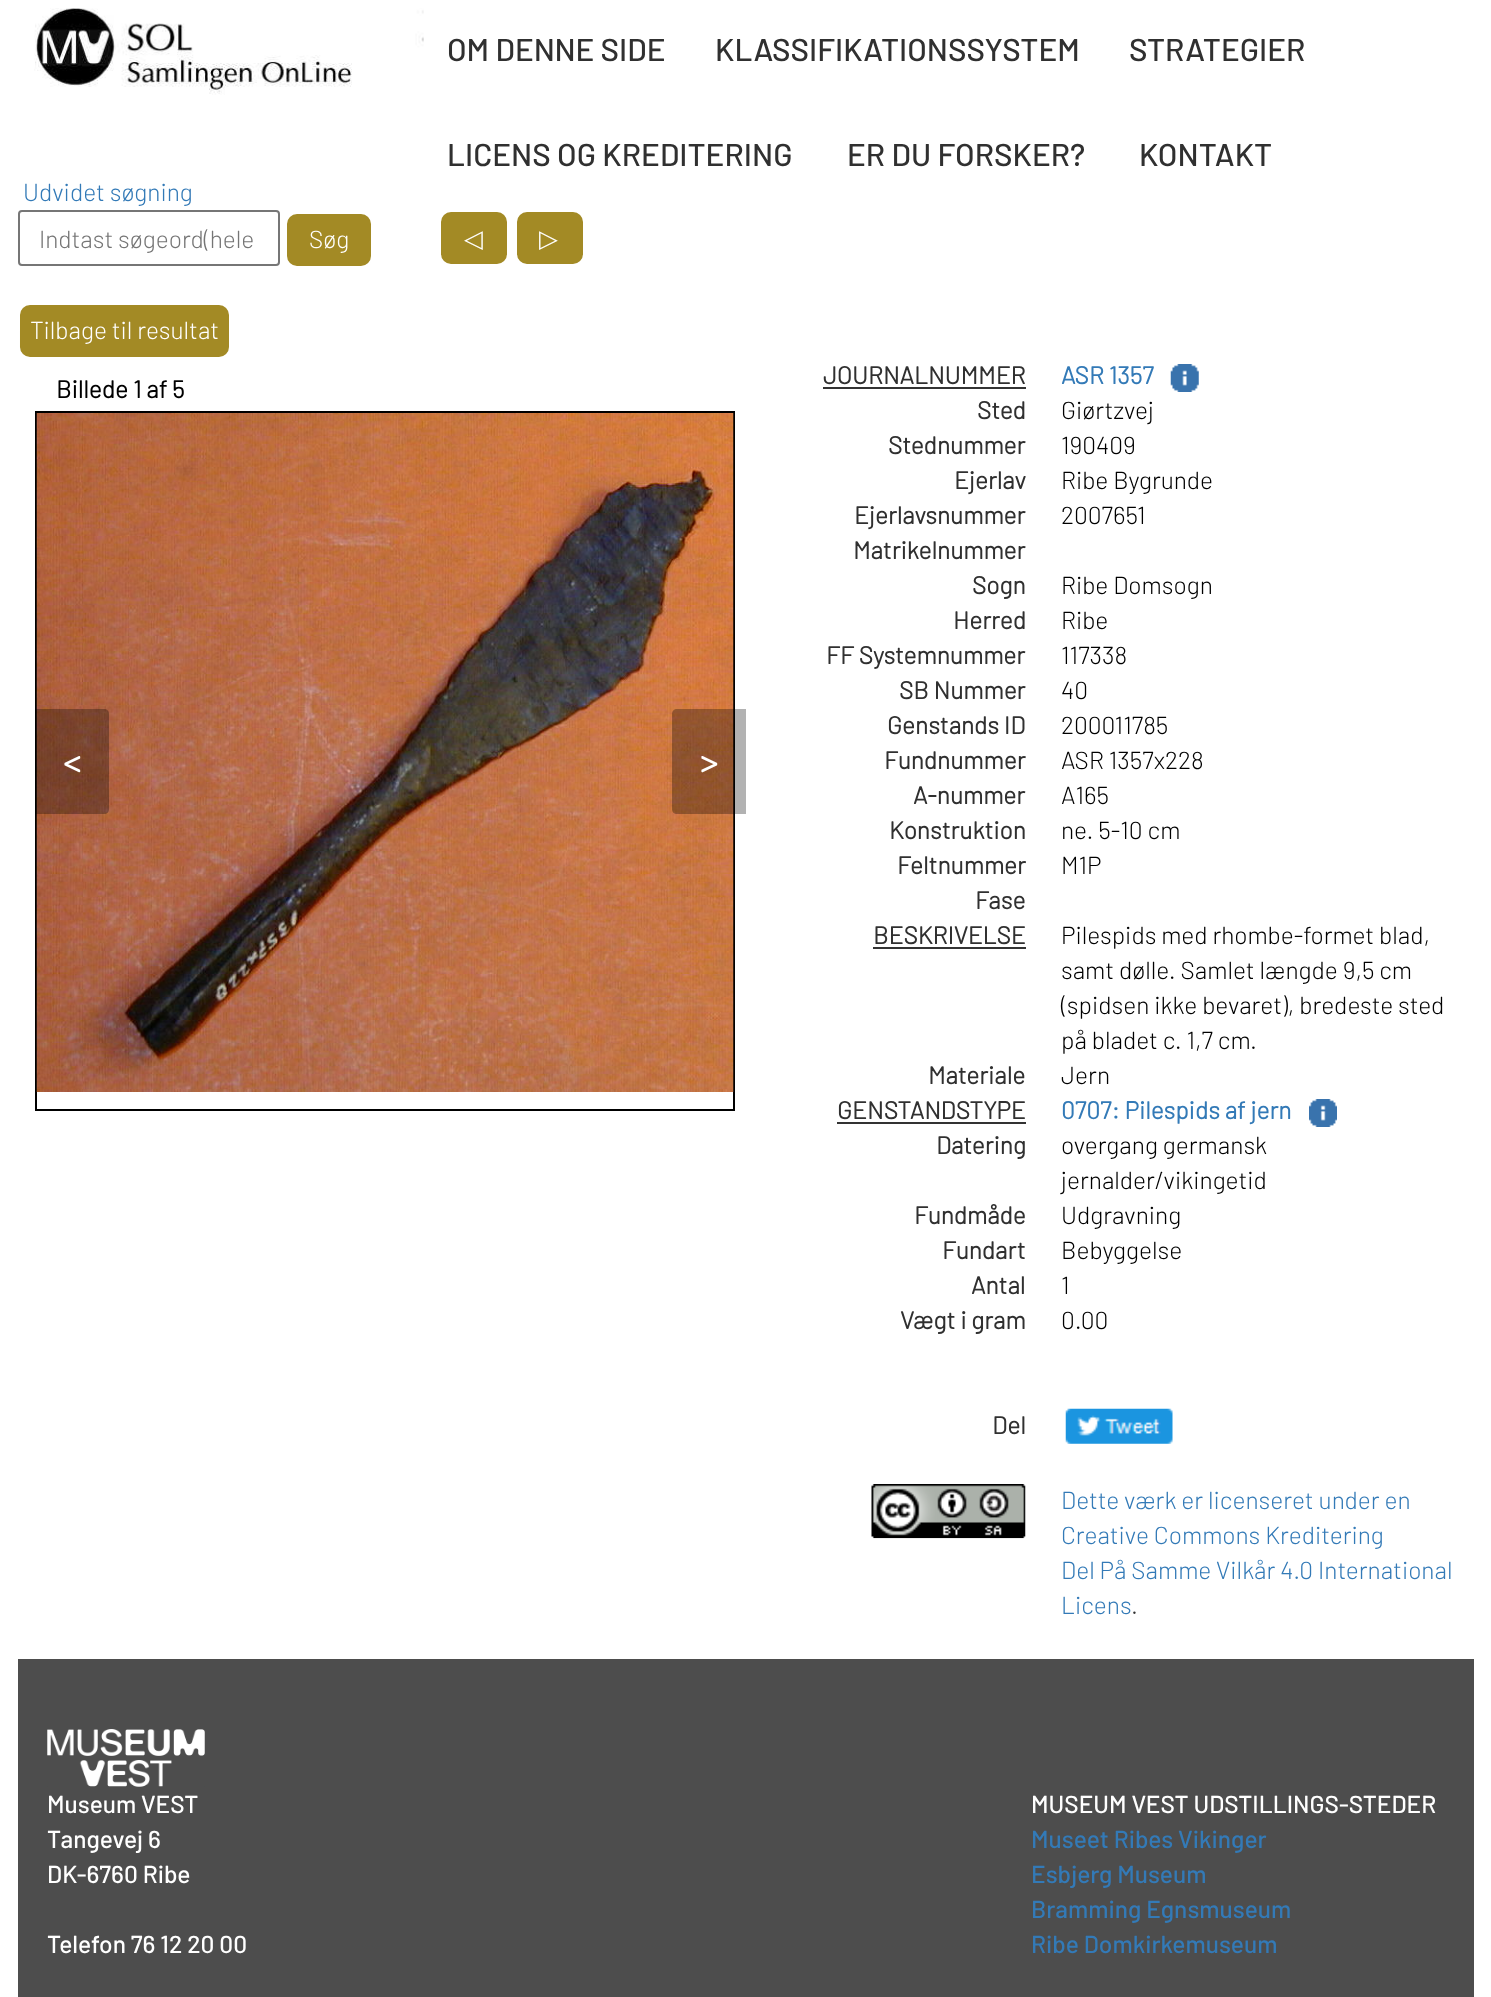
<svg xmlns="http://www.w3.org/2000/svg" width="1491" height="1997">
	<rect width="100%" height="100%" fill="#FFFFFF" />
	<image x="34" y="8" width="390" height="87" href="assets/img1.png" />
	<g font-family="Barlow" font-size="31.5" font-weight="500" fill="#303030">
		<text x="447" y="61">OM DENNE SIDE</text>
		<text x="715" y="61">KLASSIFIKATIONSSYSTEM</text>
		<text x="1129" y="61">STRATEGIER</text>
		<text x="447" y="166">LICENS OG KREDITERING</text>
		<text x="847" y="166">ER DU FORSKER?</text>
		<text x="1139" y="166">KONTAKT</text>
	</g>
	<text x="23" y="201" font-family="Barlow" font-size="24.5" font-weight="300" fill="#337AB7">Udvidet søgning</text>
	<rect x="19" y="211" width="260" height="54" rx="3" fill="none" stroke="#767676" stroke-width="2" />
	<text x="39" y="248" font-family="Barlow" font-size="24.5" font-weight="300" fill="#757575">Indtast søgeord(hele</text>
	<rect x="286" y="213" width="86" height="54" rx="11" fill="#A38A25" stroke="#FFFFFF" stroke-width="2" />
	<text x="309" y="248" font-family="Barlow" font-size="24.5" font-weight="300" fill="#FFFFFF">Søg</text>
	<rect x="440" y="211" width="68" height="54" rx="11" fill="#A38A25" stroke="#FFFFFF" stroke-width="2" />
	<text x="464" y="247" font-family="DejaVu Sans" font-size="24.5" fill="#FFFFFF">◁</text>
	<rect x="516" y="211" width="68" height="54" rx="11" fill="#A38A25" stroke="#FFFFFF" stroke-width="2" />
	<text x="539" y="247" font-family="DejaVu Sans" font-size="24.5" fill="#FFFFFF">▷</text>
	<rect x="19" y="304" width="211" height="54" rx="11" fill="#A38A25" stroke="#FFFFFF" stroke-width="2" />
	<text x="30" y="339" font-family="Barlow" font-size="24.5" font-weight="300" fill="#FFFFFF">Tilbage til resultat</text>
	<text x="56" y="398" font-family="Barlow" font-size="24.5" font-weight="700" fill="#000000">Billede 1 af 5</text>
	<rect x="36" y="412" width="698" height="698" fill="none" stroke="#000000" stroke-width="2" />
	<image x="36" y="413" width="698" height="679" href="assets/img2.png" />
	<path d="M35 709H104C107 709 109 711 109 714V809C109 812 107 814 104 814H35Z" fill="#000000" fill-opacity="0.3" />
	<text x="63" y="774" font-family="Barlow" font-size="35" font-weight="700" fill="#FFFFFF">&lt;</text>
	<path d="M677 709H746V814H677C674 814 672 812 672 809V714C672 711 674 709 677 709Z" fill="#000000" fill-opacity="0.3" />
	<text x="700" y="774" font-family="Barlow" font-size="35" font-weight="700" fill="#FFFFFF">&gt;</text>
	<text x="823" y="384" font-family="Barlow" font-size="24.5" font-weight="700" fill="#303030">JOURNALNUMMER</text>
	<rect x="823" y="387" width="203" height="2" fill="#333333" />
	<text x="1061" y="384" font-family="Barlow" font-size="24.5" font-weight="700" fill="#337AB7">ASR 1357</text>
	<image x="1170" y="364" width="29" height="28" href="assets/img3.png" />
	<text x="977" y="419" font-family="Barlow" font-size="24.5" font-weight="700" fill="#303030">Sted</text>
	<text x="1061" y="419" font-family="Barlow" font-size="24.5" font-weight="300" fill="#000000">Giørtzvej</text>
	<text x="888" y="454" font-family="Barlow" font-size="24.5" font-weight="700" fill="#303030">Stednummer</text>
	<text x="1061" y="454" font-family="Barlow" font-size="24.5" font-weight="300" fill="#000000">190409</text>
	<text x="954" y="489" font-family="Barlow" font-size="24.5" font-weight="700" fill="#303030">Ejerlav</text>
	<text x="1061" y="489" font-family="Barlow" font-size="24.5" font-weight="300" fill="#000000">Ribe Bygrunde</text>
	<text x="854" y="524" font-family="Barlow" font-size="24.5" font-weight="700" fill="#303030">Ejerlavsnummer</text>
	<text x="1061" y="524" font-family="Barlow" font-size="24.5" font-weight="300" fill="#000000">2007651</text>
	<g font-family="Barlow" font-size="24.5" font-weight="700" fill="#303030">
		<text x="853" y="559">Matrikelnummer</text>
		<text x="972" y="594">Sogn</text>
	</g>
	<text x="1061" y="594" font-family="Barlow" font-size="24.5" font-weight="300" fill="#000000">Ribe Domsogn</text>
	<text x="953" y="629" font-family="Barlow" font-size="24.5" font-weight="700" fill="#303030">Herred</text>
	<text x="1061" y="629" font-family="Barlow" font-size="24.5" font-weight="300" fill="#000000">Ribe</text>
	<text x="826" y="664" font-family="Barlow" font-size="24.5" font-weight="700" fill="#303030">FF Systemnummer</text>
	<text x="1061" y="664" font-family="Barlow" font-size="24.5" font-weight="300" fill="#000000">117338</text>
	<text x="899" y="699" font-family="Barlow" font-size="24.5" font-weight="700" fill="#303030">SB Nummer</text>
	<text x="1061" y="699" font-family="Barlow" font-size="24.5" font-weight="300" fill="#000000">40</text>
	<text x="887" y="734" font-family="Barlow" font-size="24.5" font-weight="700" fill="#303030">Genstands ID</text>
	<text x="1061" y="734" font-family="Barlow" font-size="24.5" font-weight="300" fill="#000000">200011785</text>
	<text x="884" y="769" font-family="Barlow" font-size="24.5" font-weight="700" fill="#303030">Fundnummer</text>
	<text x="1061" y="769" font-family="Barlow" font-size="24.5" font-weight="300" fill="#000000">ASR 1357x228</text>
	<text x="913" y="804" font-family="Barlow" font-size="24.5" font-weight="700" fill="#303030">A-nummer</text>
	<text x="1061" y="804" font-family="Barlow" font-size="24.5" font-weight="300" fill="#000000">A165</text>
	<text x="889" y="839" font-family="Barlow" font-size="24.5" font-weight="700" fill="#303030">Konstruktion</text>
	<text x="1061" y="839" font-family="Barlow" font-size="24.5" font-weight="300" fill="#000000">ne. 5-10 cm</text>
	<text x="897" y="874" font-family="Barlow" font-size="24.5" font-weight="700" fill="#303030">Feltnummer</text>
	<text x="1061" y="874" font-family="Barlow" font-size="24.5" font-weight="300" fill="#000000">M1P</text>
	<g font-family="Barlow" font-size="24.5" font-weight="700" fill="#303030">
		<text x="975" y="909">Fase</text>
		<text x="873" y="944">BESKRIVELSE</text>
	</g>
	<rect x="873" y="947" width="153" height="2" fill="#333333" />
	<g font-family="Barlow" font-size="24.5" font-weight="300" fill="#000000">
		<text x="1061" y="944">Pilespids med rhombe-formet blad,</text>
		<text x="1061" y="979">samt dølle. Samlet længde 9,5 cm</text>
		<text x="1061" y="1014">(spidsen ikke bevaret), bredeste sted</text>
		<text x="1061" y="1049">på bladet c. 1,7 cm.</text>
	</g>
	<text x="928" y="1084" font-family="Barlow" font-size="24.5" font-weight="700" fill="#303030">Materiale</text>
	<text x="1061" y="1084" font-family="Barlow" font-size="24.5" font-weight="300" fill="#000000">Jern</text>
	<text x="837" y="1119" font-family="Barlow" font-size="24.5" font-weight="700" fill="#303030">GENSTANDSTYPE</text>
	<rect x="837" y="1122" width="189" height="2" fill="#333333" />
	<text x="1061" y="1119" font-family="Barlow" font-size="24.5" font-weight="700" fill="#337AB7">0707: Pilespids af jern</text>
	<image x="1309" y="1099" width="28" height="28" href="assets/img4.png" />
	<text x="936" y="1154" font-family="Barlow" font-size="24.5" font-weight="700" fill="#303030">Datering</text>
	<g font-family="Barlow" font-size="24.5" font-weight="300" fill="#000000">
		<text x="1061" y="1154">overgang germansk</text>
		<text x="1061" y="1189">jernalder/vikingetid</text>
	</g>
	<text x="914" y="1224" font-family="Barlow" font-size="24.5" font-weight="700" fill="#303030">Fundmåde</text>
	<text x="1061" y="1224" font-family="Barlow" font-size="24.5" font-weight="300" fill="#000000">Udgravning</text>
	<text x="942" y="1259" font-family="Barlow" font-size="24.5" font-weight="700" fill="#303030">Fundart</text>
	<text x="1061" y="1259" font-family="Barlow" font-size="24.5" font-weight="300" fill="#000000">Bebyggelse</text>
	<text x="971" y="1294" font-family="Barlow" font-size="24.5" font-weight="700" fill="#303030">Antal</text>
	<text x="1061" y="1294" font-family="Barlow" font-size="24.5" font-weight="300" fill="#000000">1</text>
	<text x="900" y="1329" font-family="Barlow" font-size="24.5" font-weight="700" fill="#303030">Vægt i gram</text>
	<text x="1061" y="1329" font-family="Barlow" font-size="24.5" font-weight="300" fill="#000000">0.00</text>
	<text x="992" y="1434" font-family="Barlow" font-size="24.5" font-weight="700" fill="#303030">Del</text>
	<image x="1065" y="1408" width="108" height="36" href="assets/img5.png" />
	<image x="871" y="1484" width="155" height="55" href="assets/img6.png" />
	<g font-family="Barlow" font-size="24.5" font-weight="300" fill="#337AB7">
		<text x="1061" y="1509">Dette værk er licenseret under en</text>
		<text x="1061" y="1544">Creative Commons Kreditering</text>
		<text x="1061" y="1579">Del På Samme Vilkår 4.0 International</text>
		<text x="1061" y="1614">Licens</text>
	</g>
	<text x="1131" y="1614" font-family="Barlow" font-size="24.5" font-weight="300" fill="#303030">.</text>
	<rect x="18" y="1659" width="1456" height="338" fill="#4D4D4D" />
	<image x="47" y="1729" width="158" height="58" href="assets/img7.png" />
	<g font-family="Barlow" font-size="24.5" font-weight="500" fill="#FFFFFF">
		<text x="47" y="1813">Museum VEST</text>
		<text x="1031" y="1813">MUSEUM VEST UDSTILLINGS-STEDER</text>
		<text x="47" y="1848">Tangevej 6</text>
	</g>
	<text x="1031" y="1848" font-family="Barlow" font-size="24.5" font-weight="500" fill="#337AB7">Museet Ribes Vikinger</text>
	<text x="47" y="1883" font-family="Barlow" font-size="24.5" font-weight="500" fill="#FFFFFF">DK-6760 Ribe</text>
	<g font-family="Barlow" font-size="24.5" font-weight="500" fill="#337AB7">
		<text x="1031" y="1883">Esbjerg Museum</text>
		<text x="1031" y="1918">Bramming Egnsmuseum</text>
	</g>
	<text x="47" y="1953" font-family="Barlow" font-size="24.5" font-weight="500" fill="#FFFFFF">Telefon 76 12 20 00</text>
	<text x="1031" y="1953" font-family="Barlow" font-size="24.5" font-weight="500" fill="#337AB7">Ribe Domkirkemuseum</text>
</svg>
